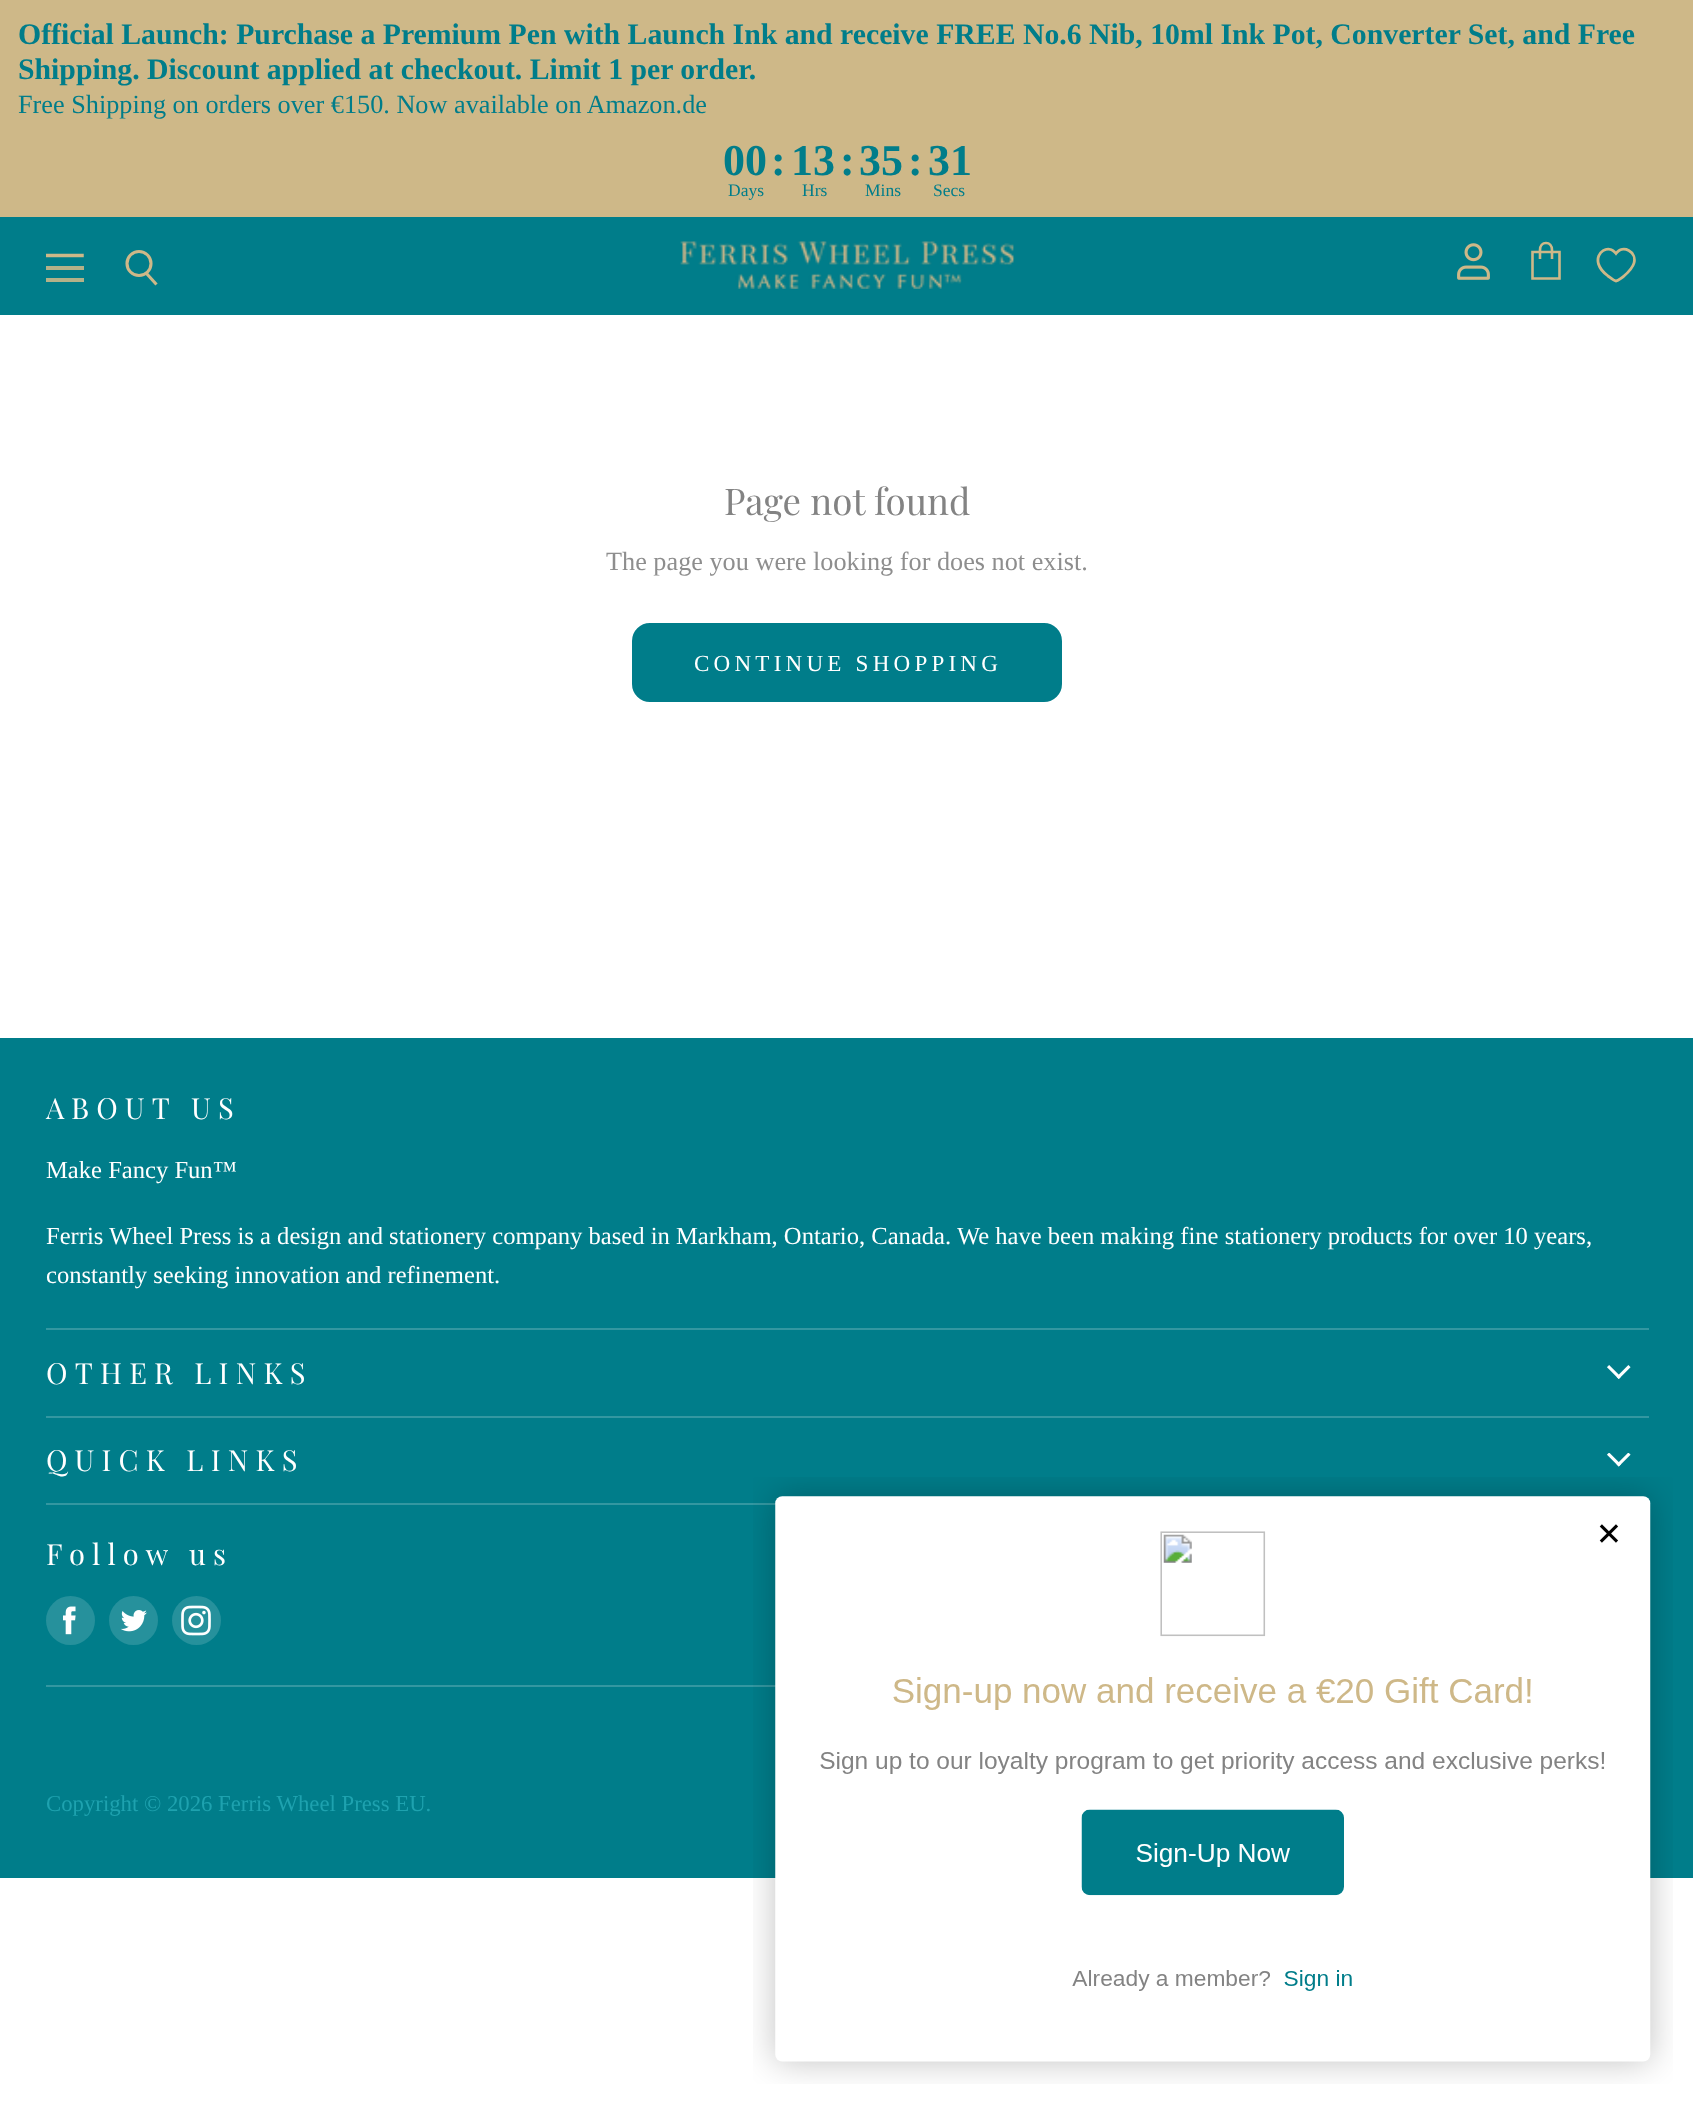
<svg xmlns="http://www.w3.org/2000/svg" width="1693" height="2104">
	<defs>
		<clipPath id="clip1"><rect x="46" y="252" width="38" height="32" /></clipPath>
	</defs>
	<rect width="100%" height="100%" fill="#FFFFFF" />
	<rect x="0" y="0" width="1693" height="217" fill="#CEB888" />
	<g font-family="Liberation Serif" font-size="29.75" font-weight="700" fill="#007D8A">
		<text x="18" y="44">Official Launch: Purchase a Premium Pen with Launch Ink and receive FREE No.6 Nib, 10ml Ink Pot, Converter Set, and Free</text>
		<text x="18" y="79">Shipping. Discount applied at checkout. Limit 1 per order.</text>
	</g>
	<text x="18" y="113" font-family="Liberation Serif" font-size="26.25" fill="#007D8A">Free Shipping on orders over €150. Now available on Amazon.de</text>
	<g font-family="Liberation Serif" font-size="44" font-weight="700" fill="#007D8A">
		<text x="723" y="175">00</text>
		<text x="771" y="175">:</text>
		<text x="791" y="175">13</text>
		<text x="840" y="175">:</text>
		<text x="859" y="175">35</text>
		<text x="908" y="175">:</text>
		<text x="928" y="175">31</text>
	</g>
	<g font-family="Liberation Serif" font-size="17.5" fill="#007D8A">
		<text x="728" y="196">Days</text>
		<text x="802" y="196">Hrs</text>
		<text x="865" y="196">Mins</text>
		<text x="933" y="196">Secs</text>
	</g>
	<rect x="0" y="217" width="1693" height="98" fill="#007D8A" />
	<g clip-path="url(#clip1)">
		<path d="M82 255.5H47" fill="none" stroke="#CEB888" stroke-width="3.5" stroke-linecap="square" stroke-linejoin="round" />
	</g>
	<rect x="46" y="266" width="38" height="4" fill="#B4B188" />
	<rect x="46" y="278" width="38" height="4" fill="#B4B188" />
	<path d="M156.5 284.5L146.5 273.5" fill="none" stroke="#CEB888" stroke-width="3.1" />
	<circle cx="139" cy="263.5" r="12" fill="none" stroke="#CEB888" stroke-width="3.1" />
	<image x="680" y="241" width="335" height="48" href="assets/img1.png" />
	<image x="1457" y="243" width="33" height="37" href="assets/img2.png" />
	<path d="M1532.5 252H1559.5V278.5H1532.5ZM1552 259V250C1552 245.5 1549.5 243 1546 243C1542.5 243 1540 245.5 1540 250V259" fill="none" stroke="#CEB888" stroke-width="2.6" />
	<path d="M1616 281C1614 281 1609.5 277 1608 276C1604 273 1600 269 1598.5 264C1595 252.5 1608.5 243.5 1616 253.5C1623 244 1637 252 1634 263C1632.5 268.5 1628 272.5 1624 276C1623.5 276.5 1618 281 1616 281Z" fill="none" stroke="#CEB888" stroke-width="2.8" />
	<text x="724" y="515" font-family="Playfair Display" font-size="36.75" fill="#838383">Page not found</text>
	<text x="606" y="570" font-family="Liberation Serif" font-size="26.25" fill="#8E8E8E">The page you were looking for does not exist.</text>
	<rect x="633" y="624" width="428" height="77" rx="17" fill="#007D8A" stroke="#007D8A" stroke-width="2" />
	<text x="694" y="671" font-family="Liberation Serif" font-size="23.1" letter-spacing="4.2" fill="#FFFFFF">CONTINUE SHOPPING</text>
	<rect x="0" y="1038" width="1693" height="840" fill="#007D8A" />
	<rect x="46" y="1328" width="1603" height="2" fill="#3397A1" />
	<text x="46" y="1119" font-family="Playfair Display" font-size="29" letter-spacing="7.25" fill="#FFFFFF">ABOUT US</text>
	<g font-family="Liberation Serif" font-size="24.6" fill="#FFFFFF">
		<text x="46" y="1178">Make Fancy Fun™</text>
		<text x="46" y="1244">Ferris Wheel Press is a design and stationery company based in Markham, Ontario, Canada. We have been making fine stationery products for over 10 years,</text>
		<text x="46" y="1283">constantly seeking innovation and refinement.</text>
	</g>
	<rect x="46" y="1416" width="1603" height="2" fill="#3397A1" />
	<text x="46" y="1384" font-family="Playfair Display" font-size="29" letter-spacing="7.25" fill="#FFFFFF">OTHER LINKS</text>
	<image x="1607" y="1365" width="24" height="14" href="assets/img3.png" />
	<rect x="46" y="1503" width="730" height="2" fill="#3397A1" />
	<text x="46" y="1471" font-family="Playfair Display" font-size="29" letter-spacing="7.25" fill="#FFFFFF">QUICK LINKS</text>
	<image x="1607" y="1453" width="24" height="14" href="assets/img4.png" />
	<rect x="46" y="1685" width="730" height="2" fill="#3397A1" />
	<text x="46" y="1565" font-family="Playfair Display" font-size="29" letter-spacing="7.25" fill="#FFFFFF">Follow us</text>
	<circle cx="70.5" cy="1620.5" r="24.5" fill="#26919C" />
	<image x="63" y="1606" width="13" height="29" href="assets/img5.png" />
	<circle cx="133.5" cy="1620.5" r="24.5" fill="#26919C" />
	<image x="120" y="1610" width="27" height="22" href="assets/img6.png" />
	<circle cx="196.5" cy="1620.5" r="24.5" fill="#26919C" />
	<image x="181" y="1605" width="30" height="31" href="assets/img7.png" />
	<text x="46" y="1811" font-family="Liberation Serif" font-size="22.75" fill="#1EA2AF">Copyright © 2026 Ferris Wheel Press EU.</text>
	<image x="753" y="1477" width="920" height="607" href="assets/img8.png" />
</svg>
